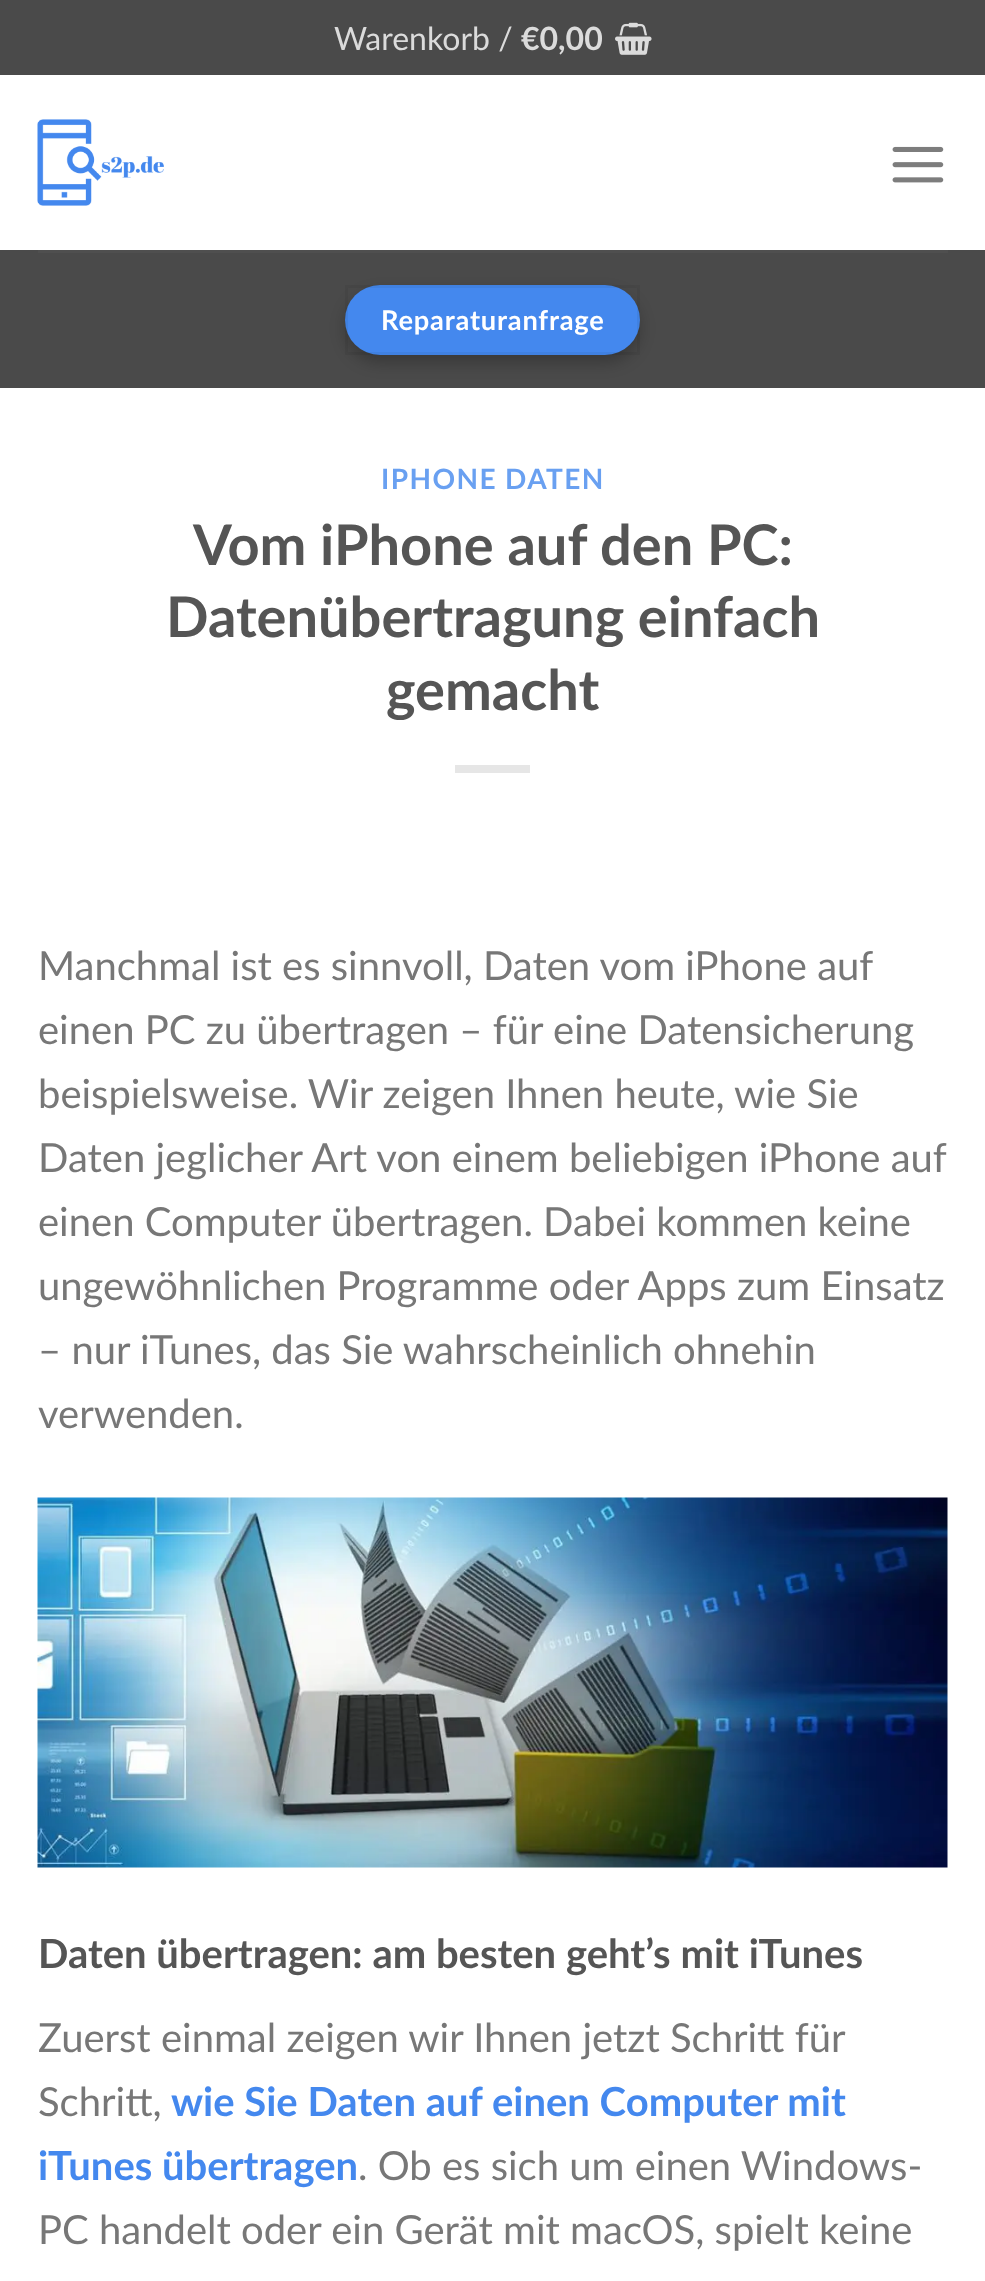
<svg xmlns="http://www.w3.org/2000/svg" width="985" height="2281">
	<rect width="100%" height="100%" fill="#FFFFFF" />
	<rect x="0" y="0" width="985" height="75" fill="#4A4A4A" />
	<text x="334" y="50" font-family="Lato" font-size="32" fill="#DBDBDB">Warenkorb /</text>
	<text x="521" y="50" font-family="Lato" font-size="32" font-weight="700" fill="#DBDBDB">€0,00</text>
	<image x="615" y="22" width="37" height="33" href="assets/img1.png" />
	<image x="37" y="119" width="127" height="87" href="assets/img2.png" />
	<image x="892" y="146" width="52" height="37" href="assets/img3.png" />
	<rect x="0" y="250" width="985" height="138" fill="#4A4A4A" />
	<rect x="38" y="250" width="910" height="3" fill="#4F4F4F" />
	<rect x="345" y="293" width="295" height="70" rx="35" fill="#000000" fill-opacity="0.23" filter="blur(7.5px)" />
	<rect x="345" y="285" width="295" height="70" rx="35" fill="#4488EE" />
	<rect x="346.5" y="286.5" width="292" height="67" fill="none" stroke="#000000" stroke-opacity="0.05" stroke-width="3" />
	<text x="381" y="330" font-family="Lato" font-size="27.25" font-weight="700" letter-spacing="0.8" fill="#FFFFFF">Reparaturanfrage</text>
	<text x="381" y="489" font-family="Lato" font-size="28" font-weight="700" letter-spacing="1.4" fill="#69A0F1">IPHONE DATEN</text>
	<g font-family="Lato" font-size="56" font-weight="700" fill="#555555">
		<text x="193" y="565">Vom iPhone auf den PC:</text>
		<text x="166" y="637">Datenübertragung einfach</text>
		<text x="386" y="710">gemacht</text>
	</g>
	<rect x="455" y="765" width="75" height="8" fill="#E6E6E6" />
	<g font-family="Lato" font-size="40" fill="#777777">
		<text x="38" y="980">Manchmal ist es sinnvoll, Daten vom iPhone auf</text>
		<text x="38" y="1044">einen PC zu übertragen – für eine Datensicherung</text>
		<text x="38" y="1108">beispielsweise. Wir zeigen Ihnen heute, wie Sie</text>
		<text x="38" y="1172">Daten jeglicher Art von einem beliebigen iPhone auf</text>
		<text x="38" y="1236">einen Computer übertragen. Dabei kommen keine</text>
		<text x="38" y="1300">ungewöhnlichen Programme oder Apps zum Einsatz</text>
		<text x="38" y="1364">– nur iTunes, das Sie wahrscheinlich ohnehin</text>
		<text x="38" y="1428">verwenden.</text>
	</g>
	<image x="37" y="1497" width="911" height="371" href="assets/img4.png" />
	<text x="38" y="1968" font-family="Lato" font-size="40" font-weight="700" fill="#555555">Daten übertragen: am besten geht’s mit iTunes</text>
	<g font-family="Lato" font-size="40" fill="#777777">
		<text x="38" y="2052">Zuerst einmal zeigen wir Ihnen jetzt Schritt für</text>
		<text x="38" y="2116">Schritt,</text>
	</g>
	<g font-family="Lato" font-size="40" font-weight="700" fill="#4488EE">
		<text x="171" y="2116">wie Sie Daten auf einen Computer mit</text>
		<text x="38" y="2180">iTunes übertragen</text>
	</g>
	<g font-family="Lato" font-size="40" fill="#777777">
		<text x="358" y="2180">. Ob es sich um einen Windows-</text>
		<text x="38" y="2244">PC handelt oder ein Gerät mit macOS, spielt keine</text>
	</g>
</svg>
